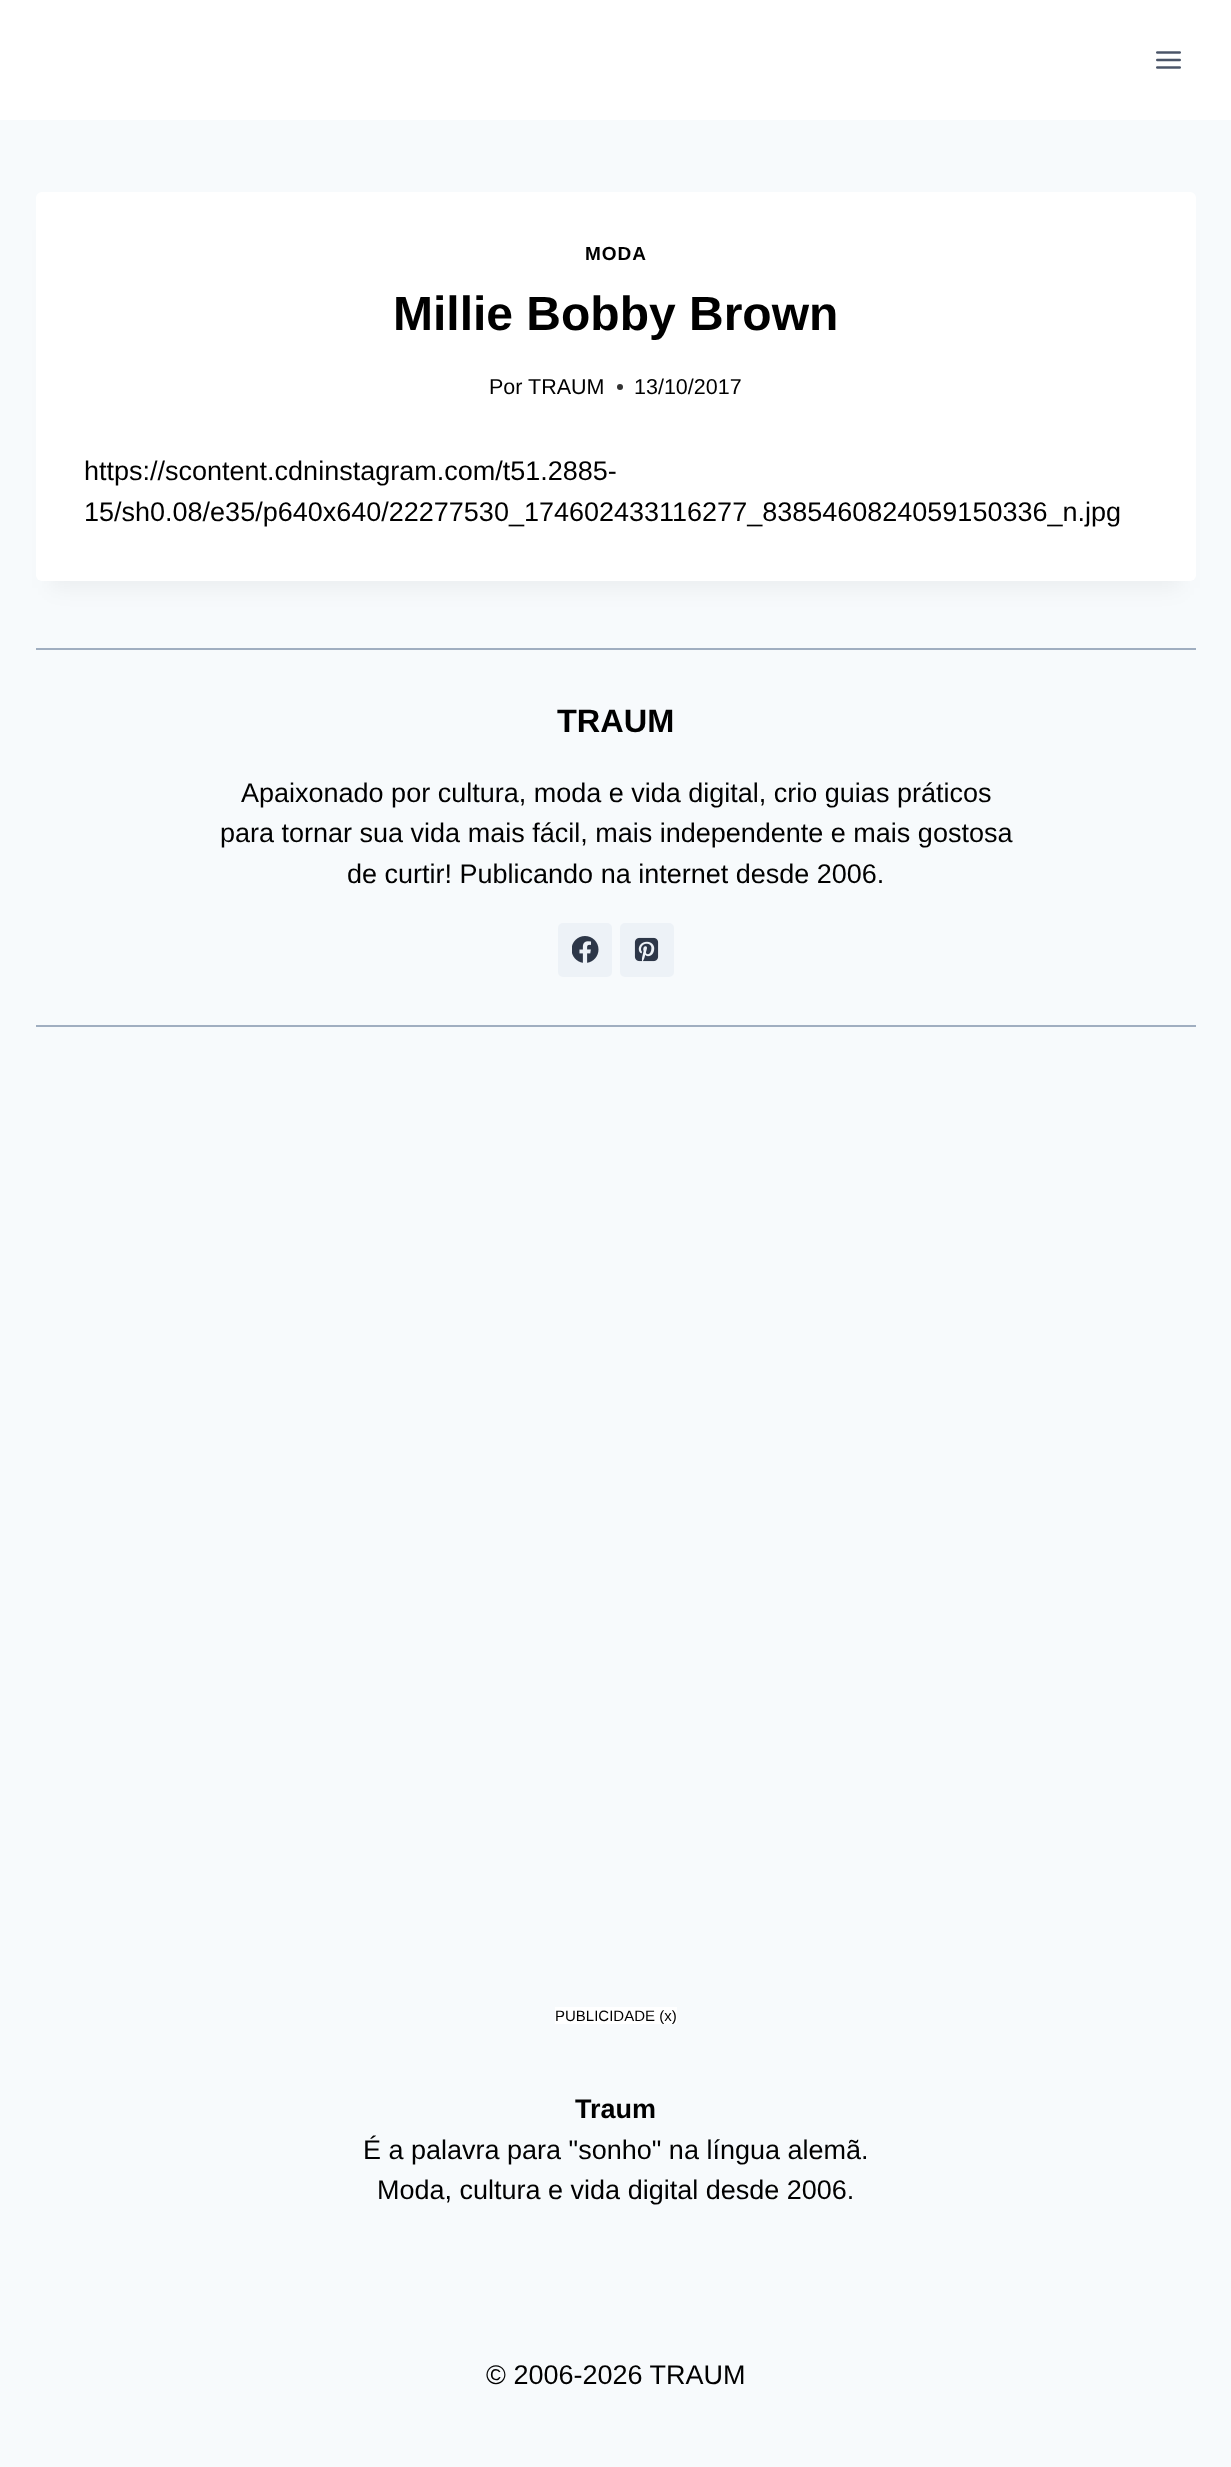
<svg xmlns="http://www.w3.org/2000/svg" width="1231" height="2467">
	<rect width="100%" height="100%" fill="#F7FAFC" />
	<rect x="0" y="0" width="1231" height="120" fill="#FFFFFF" />
	<image x="1156" y="51" width="25" height="18" href="assets/img1.png" />
	<rect x="51" y="230" width="1130" height="358" fill="#000000" fill-opacity="0.05" filter="blur(11px)" />
	<rect x="36" y="192" width="1160" height="389" rx="6" fill="#FFFFFF" />
	<text x="585" y="260" font-family="Liberation Sans" font-size="19" font-weight="700" letter-spacing="1" fill="#000000">MODA</text>
	<text x="393" y="330" font-family="Liberation Sans" font-size="48" font-weight="700" fill="#000000">Millie Bobby Brown</text>
	<g font-family="Liberation Sans" font-size="21.5" fill="#000000">
		<text x="489" y="394">Por</text>
		<text x="528" y="394">TRAUM</text>
	</g>
	<circle cx="620" cy="387" r="3" fill="#333333" />
	<text x="634" y="394" font-family="Liberation Sans" font-size="21.5" fill="#000000">13/10/2017</text>
	<g font-family="Liberation Sans" font-size="27" fill="#000000">
		<text x="84" y="480">https://scontent.cdninstagram.com/t51.2885-</text>
		<text x="84" y="521">15/sh0.08/e35/p640x640/22277530_174602433116277_8385460824059150336_n.jpg</text>
	</g>
	<rect x="36" y="648" width="1160" height="2" fill="#A0AEC0" />
	<rect x="36" y="1025" width="1160" height="2" fill="#A0AEC0" />
	<text x="557" y="732" font-family="Liberation Sans" font-size="32.5" font-weight="700" fill="#000000">TRAUM</text>
	<g font-family="Liberation Sans" font-size="27" fill="#000000">
		<text x="241" y="802">Apaixonado por cultura, moda e vida digital, crio guias práticos</text>
		<text x="220" y="842">para tornar sua vida mais fácil, mais independente e mais gostosa</text>
		<text x="347" y="883">de curtir! Publicando na internet desde 2006.</text>
	</g>
	<rect x="558" y="923" width="54" height="54" rx="5" fill="#EDF2F7" />
	<image x="572" y="936" width="27" height="27" href="assets/img2.png" />
	<rect x="620" y="923" width="54" height="54" rx="5" fill="#EDF2F7" />
	<image x="634" y="937" width="25" height="25" href="assets/img3.png" />
	<text x="575" y="2118" font-family="Liberation Sans" font-size="27" font-weight="700" fill="#000000">Traum</text>
	<g font-family="Liberation Sans" font-size="27" fill="#000000">
		<text x="363" y="2159">É a palavra para "sonho" na língua alemã.</text>
		<text x="377" y="2199">Moda, cultura e vida digital desde 2006.</text>
		<text x="486" y="2384">© 2006-2026 TRAUM</text>
	</g>
	<rect x="555" y="2007" width="122" height="17" fill="#FFFFFF" />
	<text x="555" y="2021" font-family="Liberation Sans" font-size="15" fill="#000000">PUBLICIDADE (x)</text>
</svg>
